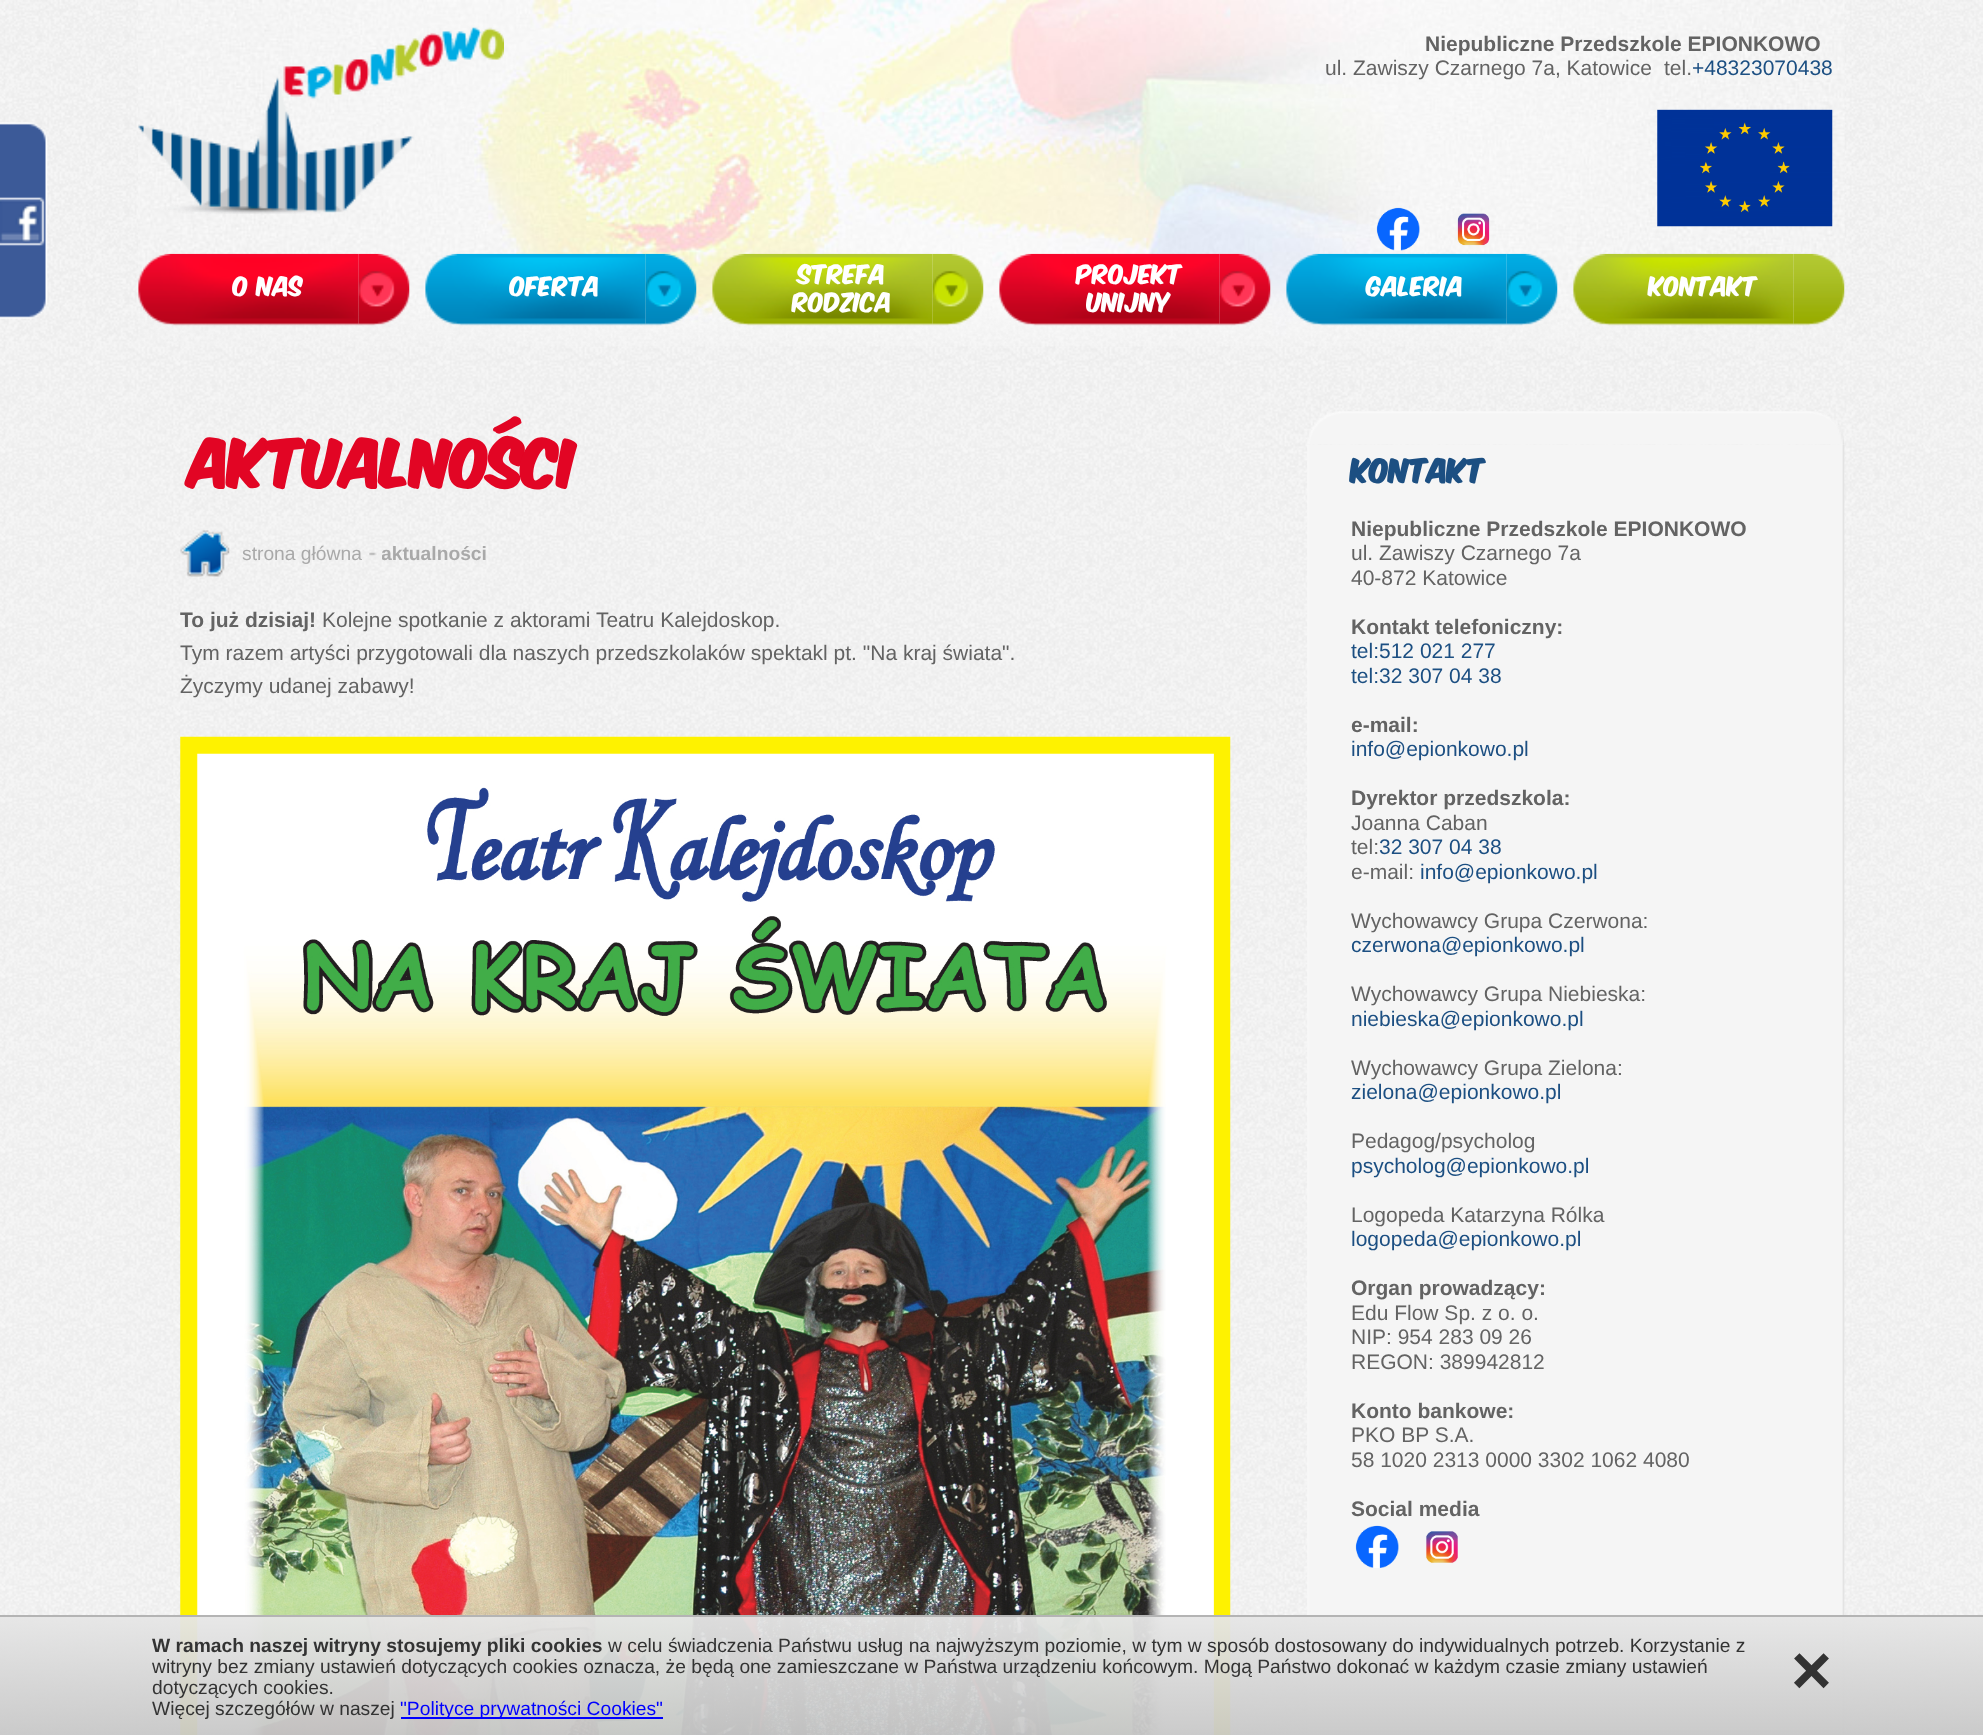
<svg xmlns="http://www.w3.org/2000/svg" width="1983" height="1735">
	<defs>
		<clipPath id="clip1"><rect x="382" y="530" width="105" height="48" /></clipPath>
		<linearGradient id="g1" gradientUnits="userSpaceOnUse" x1="992" y1="1617" x2="992" y2="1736"><stop offset="0" stop-color="#E6E6E6" stop-opacity="0.95" /><stop offset="1" stop-color="#C8C8C8" stop-opacity="0.95" /></linearGradient>
	</defs>
	<rect width="100%" height="100%" fill="#FFFFFF" />
	<image x="0" y="0" width="1983" height="1735" href="assets/img1.png" />
	<image x="0" y="122" width="48" height="197" href="assets/img2.png" />
	<image x="138" y="0" width="1707" height="346" href="assets/img3.png" />
	<image x="138" y="27" width="366" height="187" href="assets/img4.png" />
	<text x="1425" y="51" font-family="Liberation Sans" font-size="21" font-weight="700" fill="#636363">Niepubliczne Przedszkole EPIONKOWO</text>
	<g font-family="Liberation Sans" font-size="21" fill="#636363">
		<text x="1325" y="75">ul. Zawiszy Czarnego 7a, Katowice</text>
		<text x="1664" y="75">tel.</text>
	</g>
	<text x="1692" y="75" font-family="Liberation Sans" font-size="21" fill="#1C4F82">+48323070438</text>
	<image x="1376" y="207" width="44" height="44" href="assets/img5.png" />
	<image x="1457" y="213" width="33" height="33" href="assets/img6.png" />
	<image x="1657" y="109" width="176" height="118" href="assets/img7.png" />
	<image x="138" y="253" width="221" height="73" href="assets/img8.png" />
	<text x="233" y="296" font-family="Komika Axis" font-size="22.75" fill="#FFFFFF">O nas</text>
	<image x="358" y="253" width="52" height="73" href="assets/img9.png" />
	<image x="425" y="253" width="221" height="73" href="assets/img10.png" />
	<text x="510" y="296" font-family="Komika Axis" font-size="22.75" fill="#FFFFFF">Oferta</text>
	<image x="645" y="253" width="52" height="73" href="assets/img11.png" />
	<image x="712" y="253" width="221" height="73" href="assets/img12.png" />
	<g font-family="Komika Axis" font-size="22.75" fill="#FFFFFF">
		<text x="798" y="284">Strefa</text>
		<text x="792" y="312">Rodzica</text>
	</g>
	<image x="932" y="253" width="52" height="73" href="assets/img13.png" />
	<image x="999" y="253" width="221" height="73" href="assets/img14.png" />
	<g font-family="Komika Axis" font-size="22.75" fill="#FFFFFF">
		<text x="1076" y="284">Projekt</text>
		<text x="1087" y="312">Unijny</text>
	</g>
	<image x="1219" y="253" width="52" height="73" href="assets/img15.png" />
	<image x="1286" y="253" width="221" height="73" href="assets/img16.png" />
	<text x="1367" y="296" font-family="Komika Axis" font-size="22.75" fill="#FFFFFF">Galeria</text>
	<image x="1506" y="253" width="52" height="73" href="assets/img17.png" />
	<image x="1573" y="253" width="221" height="73" href="assets/img18.png" />
	<text x="1649" y="296" font-family="Komika Axis" font-size="22.75" fill="#FFFFFF">Kontakt</text>
	<image x="1793" y="253" width="52" height="73" href="assets/img19.png" />
	<text x="189" y="488" font-family="Komika Axis" font-size="56" font-weight="700" fill="#E20524">Aktualności</text>
	<image x="369" y="552" width="8" height="4" href="assets/img20.png" />
	<image x="180" y="530" width="50" height="47" href="assets/img21.png" />
	<text x="242" y="560" font-family="Liberation Sans" font-size="19.25" fill="#A9A9A9">strona główna</text>
	<g clip-path="url(#clip1)">
		<text x="381" y="560" font-family="Liberation Sans" font-size="19.25" font-weight="700" fill="#A9A9A9">aktualności</text>
	</g>
	<text x="180" y="627" font-family="Liberation Sans" font-size="21" font-weight="700" fill="#636363">To już dzisiaj!</text>
	<g font-family="Liberation Sans" font-size="21" fill="#636363">
		<text x="322" y="627">Kolejne spotkanie z aktorami Teatru Kalejdoskop.</text>
		<text x="180" y="660">Tym razem artyści przygotowali dla naszych przedszkolaków spektakl pt. "Na kraj świata".</text>
		<text x="180" y="693">Życzymy udanej zabawy!</text>
	</g>
	<image x="180" y="736" width="1051" height="999" href="assets/img22.png" />
	<image x="1307" y="411" width="537" height="34" href="assets/img23.png" />
	<image x="1307" y="445" width="538" height="1290" href="assets/img24.png" />
	<text x="1351" y="483" font-family="Komika Axis" font-size="28" font-weight="700" fill="#1C4F82">Kontakt</text>
	<text x="1351" y="536" font-family="Liberation Sans" font-size="21" font-weight="700" fill="#636363">Niepubliczne Przedszkole EPIONKOWO</text>
	<g font-family="Liberation Sans" font-size="21" fill="#636363">
		<text x="1351" y="560">ul. Zawiszy Czarnego 7a</text>
		<text x="1351" y="585">40-872 Katowice</text>
	</g>
	<text x="1351" y="634" font-family="Liberation Sans" font-size="21" font-weight="700" fill="#636363">Kontakt telefoniczny:</text>
	<g font-family="Liberation Sans" font-size="21" fill="#1C4F82">
		<text x="1351" y="658">tel:512 021 277</text>
		<text x="1351" y="683">tel:32 307 04 38</text>
	</g>
	<text x="1351" y="732" font-family="Liberation Sans" font-size="21" font-weight="700" fill="#636363">e-mail:</text>
	<text x="1351" y="756" font-family="Liberation Sans" font-size="21" fill="#1C4F82">info@epionkowo.pl</text>
	<text x="1351" y="805" font-family="Liberation Sans" font-size="21" font-weight="700" fill="#636363">Dyrektor przedszkola:</text>
	<g font-family="Liberation Sans" font-size="21" fill="#636363">
		<text x="1351" y="830">Joanna Caban</text>
		<text x="1351" y="854">tel:</text>
	</g>
	<text x="1379" y="854" font-family="Liberation Sans" font-size="21" fill="#1C4F82">32 307 04 38</text>
	<text x="1351" y="879" font-family="Liberation Sans" font-size="21" fill="#636363">e-mail:</text>
	<text x="1420" y="879" font-family="Liberation Sans" font-size="21" fill="#1C4F82">info@epionkowo.pl</text>
	<text x="1351" y="928" font-family="Liberation Sans" font-size="21" fill="#636363">Wychowawcy Grupa Czerwona:</text>
	<text x="1351" y="952" font-family="Liberation Sans" font-size="21" fill="#1C4F82">czerwona@epionkowo.pl</text>
	<text x="1351" y="1001" font-family="Liberation Sans" font-size="21" fill="#636363">Wychowawcy Grupa Niebieska:</text>
	<text x="1351" y="1026" font-family="Liberation Sans" font-size="21" fill="#1C4F82">niebieska@epionkowo.pl</text>
	<text x="1351" y="1075" font-family="Liberation Sans" font-size="21" fill="#636363">Wychowawcy Grupa Zielona:</text>
	<text x="1351" y="1099" font-family="Liberation Sans" font-size="21" fill="#1C4F82">zielona@epionkowo.pl</text>
	<text x="1351" y="1148" font-family="Liberation Sans" font-size="21" fill="#636363">Pedagog/psycholog</text>
	<text x="1351" y="1173" font-family="Liberation Sans" font-size="21" fill="#1C4F82">psycholog@epionkowo.pl</text>
	<text x="1351" y="1222" font-family="Liberation Sans" font-size="21" fill="#636363">Logopeda Katarzyna Rólka</text>
	<text x="1351" y="1246" font-family="Liberation Sans" font-size="21" fill="#1C4F82">logopeda@epionkowo.pl</text>
	<text x="1351" y="1295" font-family="Liberation Sans" font-size="21" font-weight="700" fill="#636363">Organ prowadzący:</text>
	<g font-family="Liberation Sans" font-size="21" fill="#636363">
		<text x="1351" y="1320">Edu Flow Sp. z o. o.</text>
		<text x="1351" y="1344">NIP: 954 283 09 26</text>
		<text x="1351" y="1369">REGON: 389942812</text>
	</g>
	<text x="1351" y="1418" font-family="Liberation Sans" font-size="21" font-weight="700" fill="#636363">Konto bankowe:</text>
	<g font-family="Liberation Sans" font-size="21" fill="#636363">
		<text x="1351" y="1442">PKO BP S.A.</text>
		<text x="1351" y="1467">58 1020 2313 0000 3302 1062 4080</text>
	</g>
	<text x="1351" y="1516" font-family="Liberation Sans" font-size="21" font-weight="700" fill="#636363">Social media</text>
	<image x="1355" y="1525" width="44" height="43" href="assets/img25.png" />
	<image x="1426" y="1531" width="32" height="32" href="assets/img26.png" />
	<rect x="0" y="1617" width="1983" height="118" fill="url(#g1)" />
	<rect x="0" y="1615" width="1983" height="2" fill="#B4B4B4" />
	<text x="152" y="1652" font-family="Liberation Sans" font-size="19.25" font-weight="700" fill="#333333">W ramach naszej witryny stosujemy pliki cookies</text>
	<g font-family="Liberation Sans" font-size="19.25" fill="#333333">
		<text x="608" y="1652">w celu świadczenia Państwu usług na najwyższym poziomie, w tym w sposób dostosowany do indywidualnych potrzeb. Korzystanie z</text>
		<text x="152" y="1673">witryny bez zmiany ustawień dotyczących cookies oznacza, że będą one zamieszczane w Państwa urządzeniu końcowym. Mogą Państwo dokonać w każdym czasie zmiany ustawień</text>
		<text x="152" y="1694">dotyczących cookies.</text>
		<text x="152" y="1715">Więcej szczegółów w naszej</text>
	</g>
	<rect x="401" y="1717" width="262" height="2" fill="#0000FF" />
	<text x="400" y="1715" font-family="Liberation Sans" font-size="19.25" fill="#0000FF">"Polityce prywatności Cookies"</text>
	<text x="1791" y="1694" font-family="Liberation Sans" font-size="70" font-weight="700" fill="#333333">×</text>
</svg>
